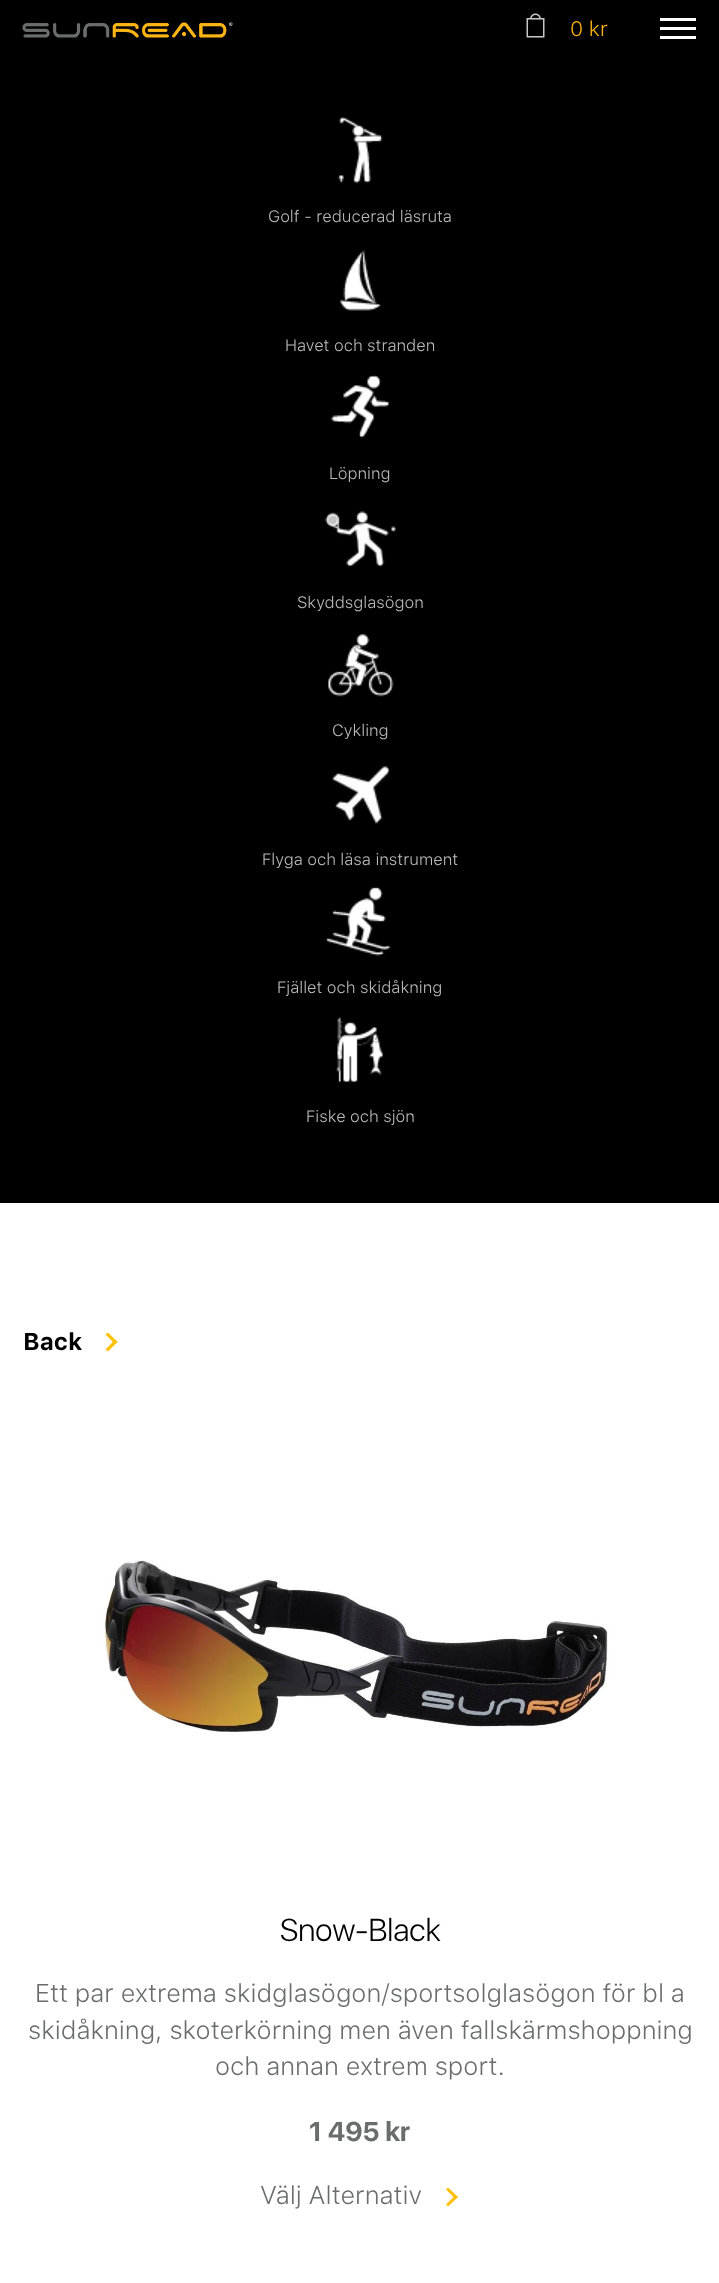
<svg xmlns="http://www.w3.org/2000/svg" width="719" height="2283">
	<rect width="100%" height="100%" fill="#FFFFFF" />
	<rect x="0" y="0" width="719" height="1203" fill="#000000" />
	<image x="22" y="22" width="211" height="16" href="assets/img1.png" />
	<image x="526" y="13" width="19" height="25" href="assets/img2.png" />
	<text x="570" y="36" font-family="SF Pro Text" font-size="21" font-weight="300" fill="#FDB514">0 kr</text>
	<rect x="660" y="18" width="36" height="3" fill="#FFFFFF" />
	<rect x="660" y="27" width="36" height="3" fill="#FFFFFF" />
	<rect x="660" y="36" width="36" height="3" fill="#FFFFFF" />
	<image x="338" y="116" width="45" height="68" href="assets/img3.png" />
	<text x="268" y="222" font-family="SF Pro Text" font-size="16.5" font-weight="300" fill="#BBBBBB">Golf - reducerad läsruta</text>
	<image x="340" y="250" width="42" height="61" href="assets/img4.png" />
	<text x="285" y="351" font-family="SF Pro Text" font-size="16.5" font-weight="300" fill="#BBBBBB">Havet och stranden</text>
	<image x="331" y="375" width="58" height="63" href="assets/img5.png" />
	<text x="329" y="479" font-family="SF Pro Text" font-size="16.5" font-weight="300" fill="#BBBBBB">Löpning</text>
	<image x="325" y="511" width="71" height="56" href="assets/img6.png" />
	<text x="297" y="608" font-family="SF Pro Text" font-size="16.5" font-weight="300" fill="#BBBBBB">Skyddsglasögon</text>
	<image x="328" y="634" width="66" height="63" href="assets/img7.png" />
	<text x="332" y="736" font-family="SF Pro Text" font-size="16.5" font-weight="300" fill="#BBBBBB">Cykling</text>
	<image x="332" y="766" width="58" height="58" href="assets/img8.png" />
	<text x="262" y="865" font-family="SF Pro Text" font-size="16.5" font-weight="300" fill="#BBBBBB">Flyga och läsa instrument</text>
	<image x="326" y="887" width="65" height="69" href="assets/img9.png" />
	<text x="277" y="993" font-family="SF Pro Text" font-size="16.5" font-weight="300" fill="#BBBBBB">Fjället och skidåkning</text>
	<image x="336" y="1016" width="48" height="66" href="assets/img10.png" />
	<text x="306" y="1122" font-family="SF Pro Text" font-size="16.5" font-weight="300" fill="#BBBBBB">Fiske och sjön</text>
	<text x="23" y="1350" font-family="SF Pro Text" font-size="24" font-weight="700" fill="#000000">Back</text>
	<path d="M105.5 1334.5L108 1332.5L117.5 1342L115 1344Z" fill="#FFC107" />
	<path d="M105.5 1349.5L115 1339.5L117.5 1342L108 1351.5Z" fill="#FFC107" />
	<image x="103" y="1560" width="506" height="172" href="assets/img11.png" />
	<text x="280" y="1941" font-family="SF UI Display" font-size="31.5" font-weight="300" fill="#000000">Snow-Black</text>
	<g font-family="SF Pro Text" font-size="25.5" font-weight="300" fill="#6B6C6C">
		<text x="35" y="2002">Ett par extrema skidglasögon/sportsolglasögon för bl a</text>
		<text x="28" y="2039">skidåkning, skoterkörning men även fallskärmshoppning</text>
		<text x="215" y="2075">och annan extrem sport.</text>
	</g>
	<text x="309" y="2141" font-family="SF UI Display" font-size="27" font-weight="700" fill="#6B6C6C">1 495 kr</text>
	<text x="260" y="2204" font-family="SF Pro Text" font-size="25.5" font-weight="300" fill="#6B6C6C">Välj Alternativ</text>
	<path d="M446 2189.5L448 2187.5L458 2197L455.5 2199Z" fill="#FFC107" />
	<path d="M446 2204.5L455.5 2195L458 2197L448 2206.5Z" fill="#FFC107" />
</svg>
